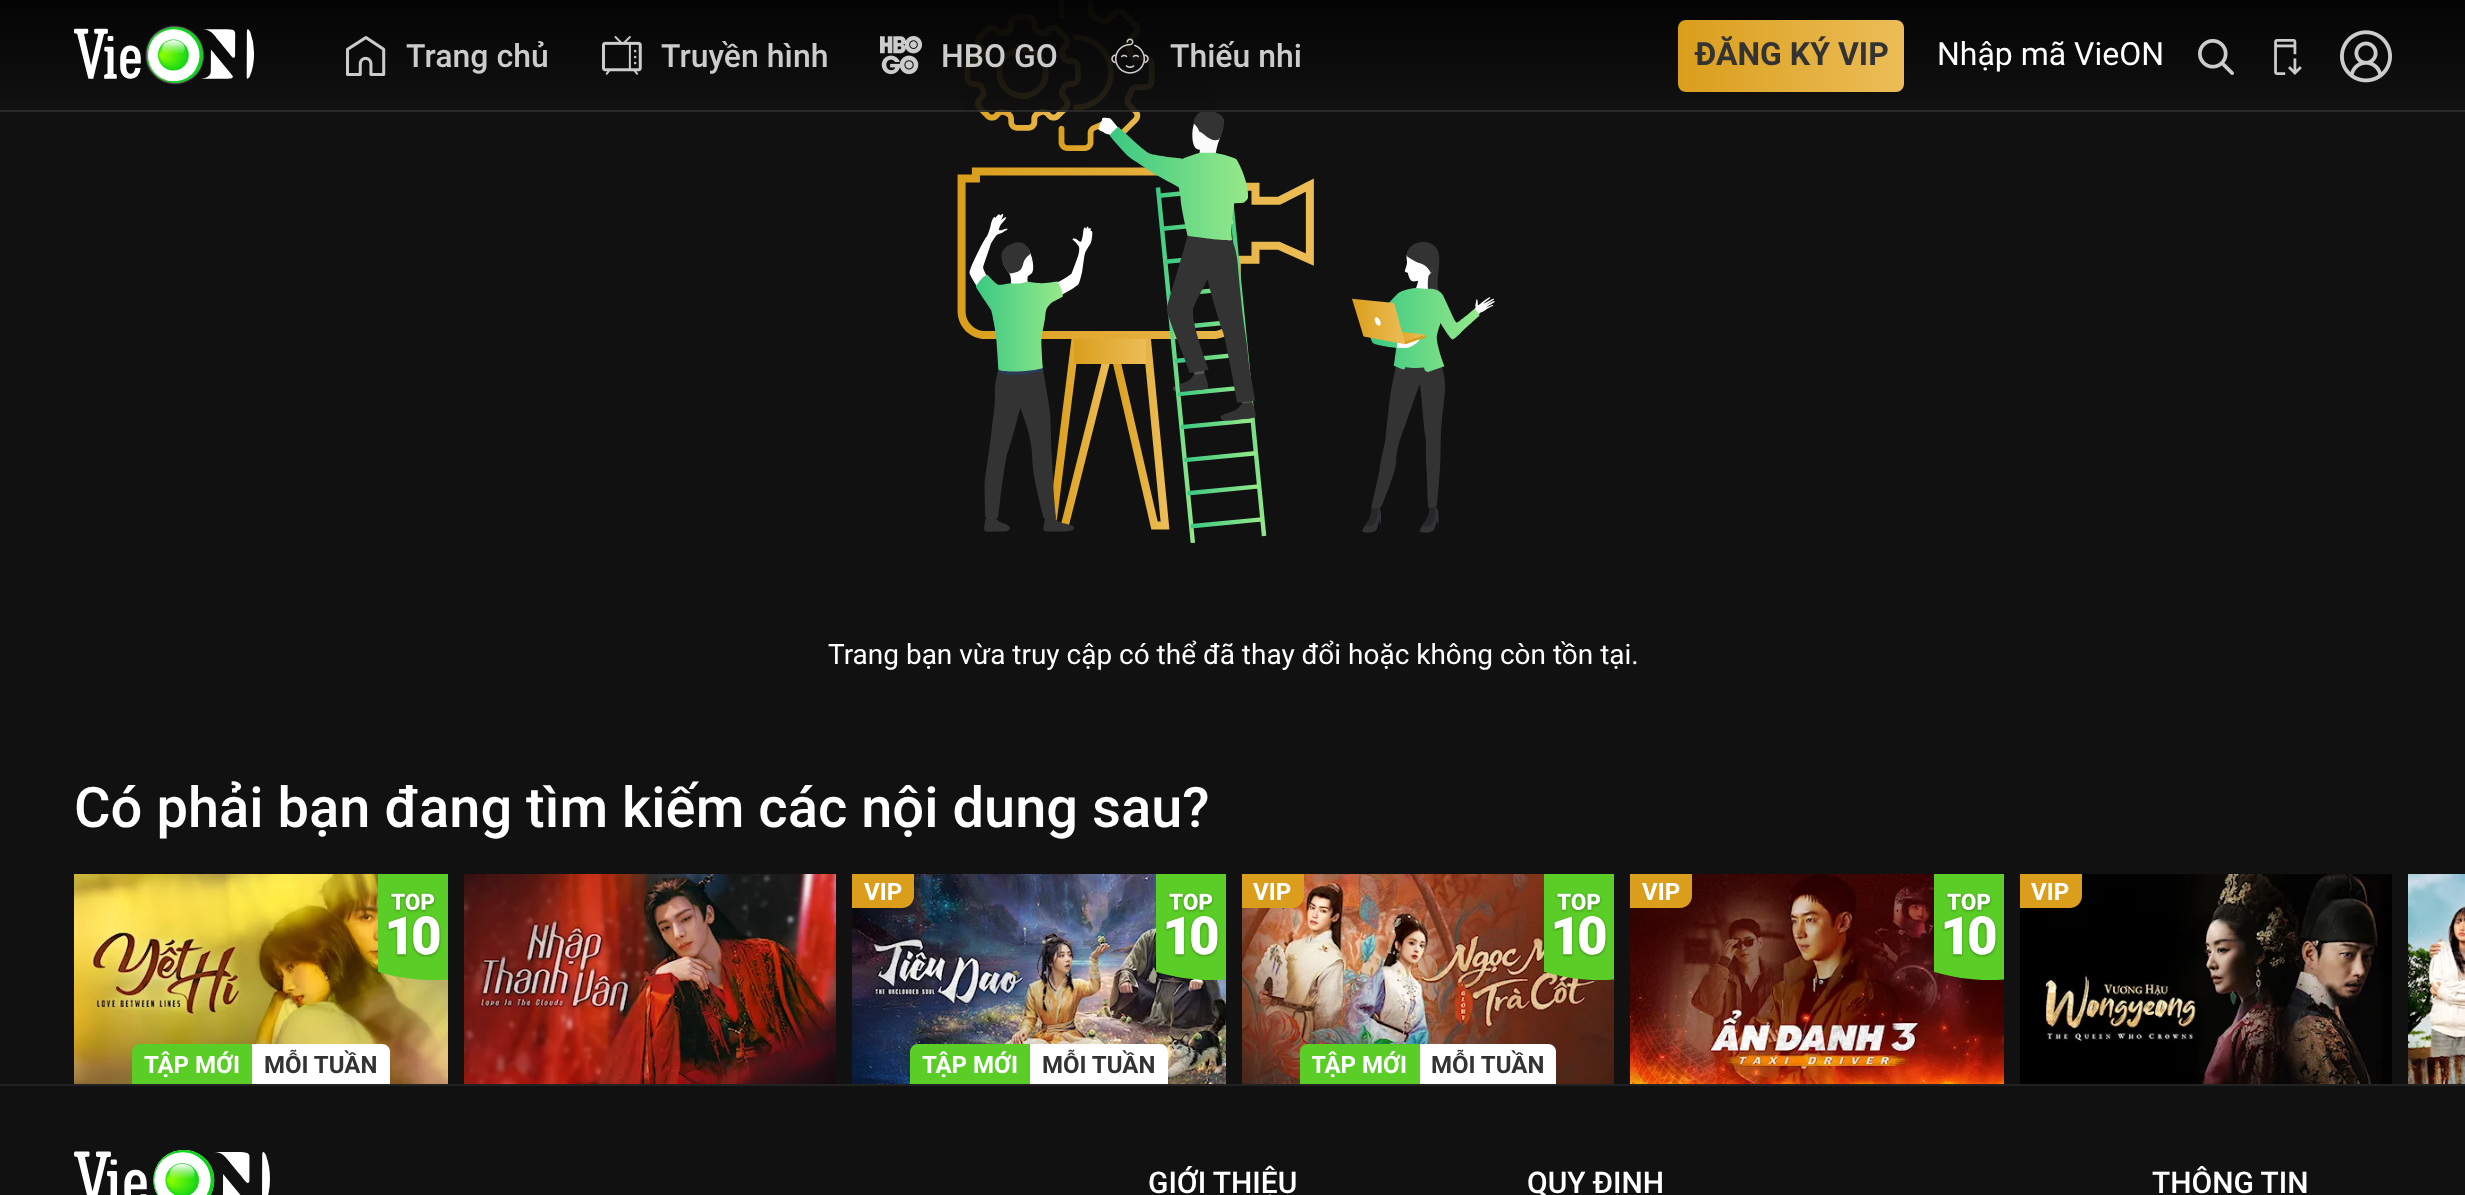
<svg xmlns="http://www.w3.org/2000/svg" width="2465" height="1195">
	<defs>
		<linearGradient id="g1" gradientUnits="userSpaceOnUse" x1="1233" y1="112" x2="1233" y2="0"><stop offset="0" stop-color="#000000" stop-opacity="0" /><stop offset="1" stop-color="#000000" stop-opacity="0.75" /></linearGradient>
		<linearGradient id="g2" gradientUnits="userSpaceOnUse" x1="1678" y1="56" x2="1904" y2="56"><stop offset="0" stop-color="#DA9E1C" /><stop offset="1" stop-color="#ECBD57" /></linearGradient>
		<clipPath id="clip1"><rect x="1312" y="1046" width="96" height="36" /></clipPath>
	</defs>
	<rect width="100%" height="100%" fill="#111111" />
	<image x="957" y="0" width="538" height="543" href="assets/img9.png" />
	<rect x="964" y="0" width="251" height="112" fill="#111111" fill-opacity="0.9" />
	<rect x="0" y="0" width="2465" height="102" fill="url(#g1)" />
	<rect x="0" y="110" width="2465" height="2" fill="#FFFFFF" fill-opacity="0.1" />
	<image x="74" y="25" width="180" height="60" href="assets/img1.png" />
	<image x="346" y="36" width="40" height="40" href="assets/img2.png" />
	<text x="406" y="67" font-family="Roboto" font-size="32" font-weight="500" fill="#CCCCCC">Trang chủ</text>
	<image x="602" y="36" width="40" height="39" href="assets/img3.png" />
	<text x="661" y="67" font-family="Roboto" font-size="32" font-weight="500" fill="#CCCCCC">Truyền hình</text>
	<image x="880" y="36" width="42" height="39" href="assets/img4.png" />
	<text x="941" y="67" font-family="Roboto" font-size="32" font-weight="500" fill="#CCCCCC">HBO GO</text>
	<image x="1111" y="38" width="38" height="36" href="assets/img5.png" />
	<text x="1170" y="67" font-family="Roboto" font-size="32" font-weight="500" fill="#CCCCCC">Thiếu nhi</text>
	<rect x="1678" y="20" width="226" height="72" rx="8" fill="url(#g2)" />
	<text x="1695" y="65" font-family="Roboto" font-size="32" font-weight="700" fill="#333333">ĐĂNG KÝ VIP</text>
	<text x="1937" y="65" font-family="Roboto" font-size="32" fill="#FFFFFF">Nhập mã VieON</text>
	<image x="2198" y="39" width="36" height="36" href="assets/img6.png" />
	<image x="2274" y="39" width="28" height="36" href="assets/img7.png" />
	<image x="2340" y="30" width="52" height="53" href="assets/img8.png" />
	<text x="828" y="664" font-family="Roboto" font-size="28" fill="#FFFFFF">Trang bạn vừa truy cập có thể đã thay đổi hoặc không còn tồn tại.</text>
	<text x="74" y="827" font-family="Roboto" font-size="56" font-weight="500" fill="#FFFFFF">Có phải bạn đang tìm kiếm các nội dung sau?</text>
	<image x="464" y="874" width="372" height="210" href="assets/img10.png" />
	<image x="852" y="874" width="374" height="210" href="assets/img11.png" />
	<path d="M852 874H914V896C914 902.5 908.5 908 902 908H852Z" fill="#DA9E1C" />
	<text x="864" y="900" font-family="Roboto" font-size="24" font-weight="700" fill="#FFFFFF">VIP</text>
	<image x="1156" y="874" width="70" height="106" href="assets/img12.png" />
	<path d="M918 1044H1030V1084H910V1052C910 1047.5 913.5 1044 918 1044Z" fill="#5BCD27" />
	<text x="922" y="1073" font-family="Roboto" font-size="24" font-weight="700" fill="#FFFFFF">TẬP MỚI</text>
	<path d="M1030 1044H1160C1164.5 1044 1168 1047.5 1168 1052V1084H1030Z" fill="#FFFFFF" />
	<text x="1042" y="1073" font-family="Roboto" font-size="24" font-weight="700" fill="#333333">MỖI TUẦN</text>
	<image x="1242" y="874" width="372" height="210" href="assets/img13.png" />
	<path d="M1242 874H1304V896C1304 902.5 1298.5 908 1292 908H1242Z" fill="#DA9E1C" />
	<text x="1253" y="900" font-family="Roboto" font-size="24" font-weight="700" fill="#FFFFFF">VIP</text>
	<image x="1544" y="874" width="70" height="106" href="assets/img14.png" />
	<path d="M1308 1044H1420V1084H1300V1052C1300 1047.5 1303.5 1044 1308 1044Z" fill="#5BCD27" />
	<g clip-path="url(#clip1)">
		<text x="1311" y="1073" font-family="Roboto" font-size="24" font-weight="700" fill="#FFFFFF">TẬP MỚI</text>
	</g>
	<path d="M1420 1044H1548C1552.5 1044 1556 1047.5 1556 1052V1084H1420Z" fill="#FFFFFF" />
	<text x="1431" y="1073" font-family="Roboto" font-size="24" font-weight="700" fill="#333333">MỖI TUẦN</text>
	<image x="1630" y="874" width="374" height="210" href="assets/img15.png" />
	<path d="M1630 874H1692V896C1692 902.5 1686.5 908 1680 908H1630Z" fill="#DA9E1C" />
	<text x="1642" y="900" font-family="Roboto" font-size="24" font-weight="700" fill="#FFFFFF">VIP</text>
	<image x="1934" y="874" width="70" height="106" href="assets/img16.png" />
	<image x="2020" y="874" width="372" height="210" href="assets/img17.png" />
	<path d="M2020 874H2082V896C2082 902.5 2076.5 908 2070 908H2020Z" fill="#DA9E1C" />
	<text x="2031" y="900" font-family="Roboto" font-size="24" font-weight="700" fill="#FFFFFF">VIP</text>
	<image x="2408" y="874" width="57" height="210" href="assets/img18.png" />
	<image x="74" y="874" width="374" height="210" href="assets/img19.png" />
	<image x="378" y="874" width="70" height="106" href="assets/img20.png" />
	<path d="M140 1044H252V1084H132V1052C132 1047.5 135.5 1044 140 1044Z" fill="#5BCD27" />
	<text x="144" y="1073" font-family="Roboto" font-size="24" font-weight="700" fill="#FFFFFF">TẬP MỚI</text>
	<path d="M252 1044H382C386.5 1044 390 1047.5 390 1052V1084H252Z" fill="#FFFFFF" />
	<text x="264" y="1073" font-family="Roboto" font-size="24" font-weight="700" fill="#333333">MỖI TUẦN</text>
	<rect x="0" y="1084" width="2465" height="2" fill="#222222" />
	<image x="74" y="1150" width="196" height="45" href="assets/img21.png" />
	<g font-family="Roboto" font-size="30" font-weight="500" fill="#FFFFFF">
		<text x="1148" y="1193">GIỚI THIỆU</text>
		<text x="1527" y="1193">QUY ĐỊNH</text>
		<text x="2152" y="1193">THÔNG TIN</text>
	</g>
</svg>
